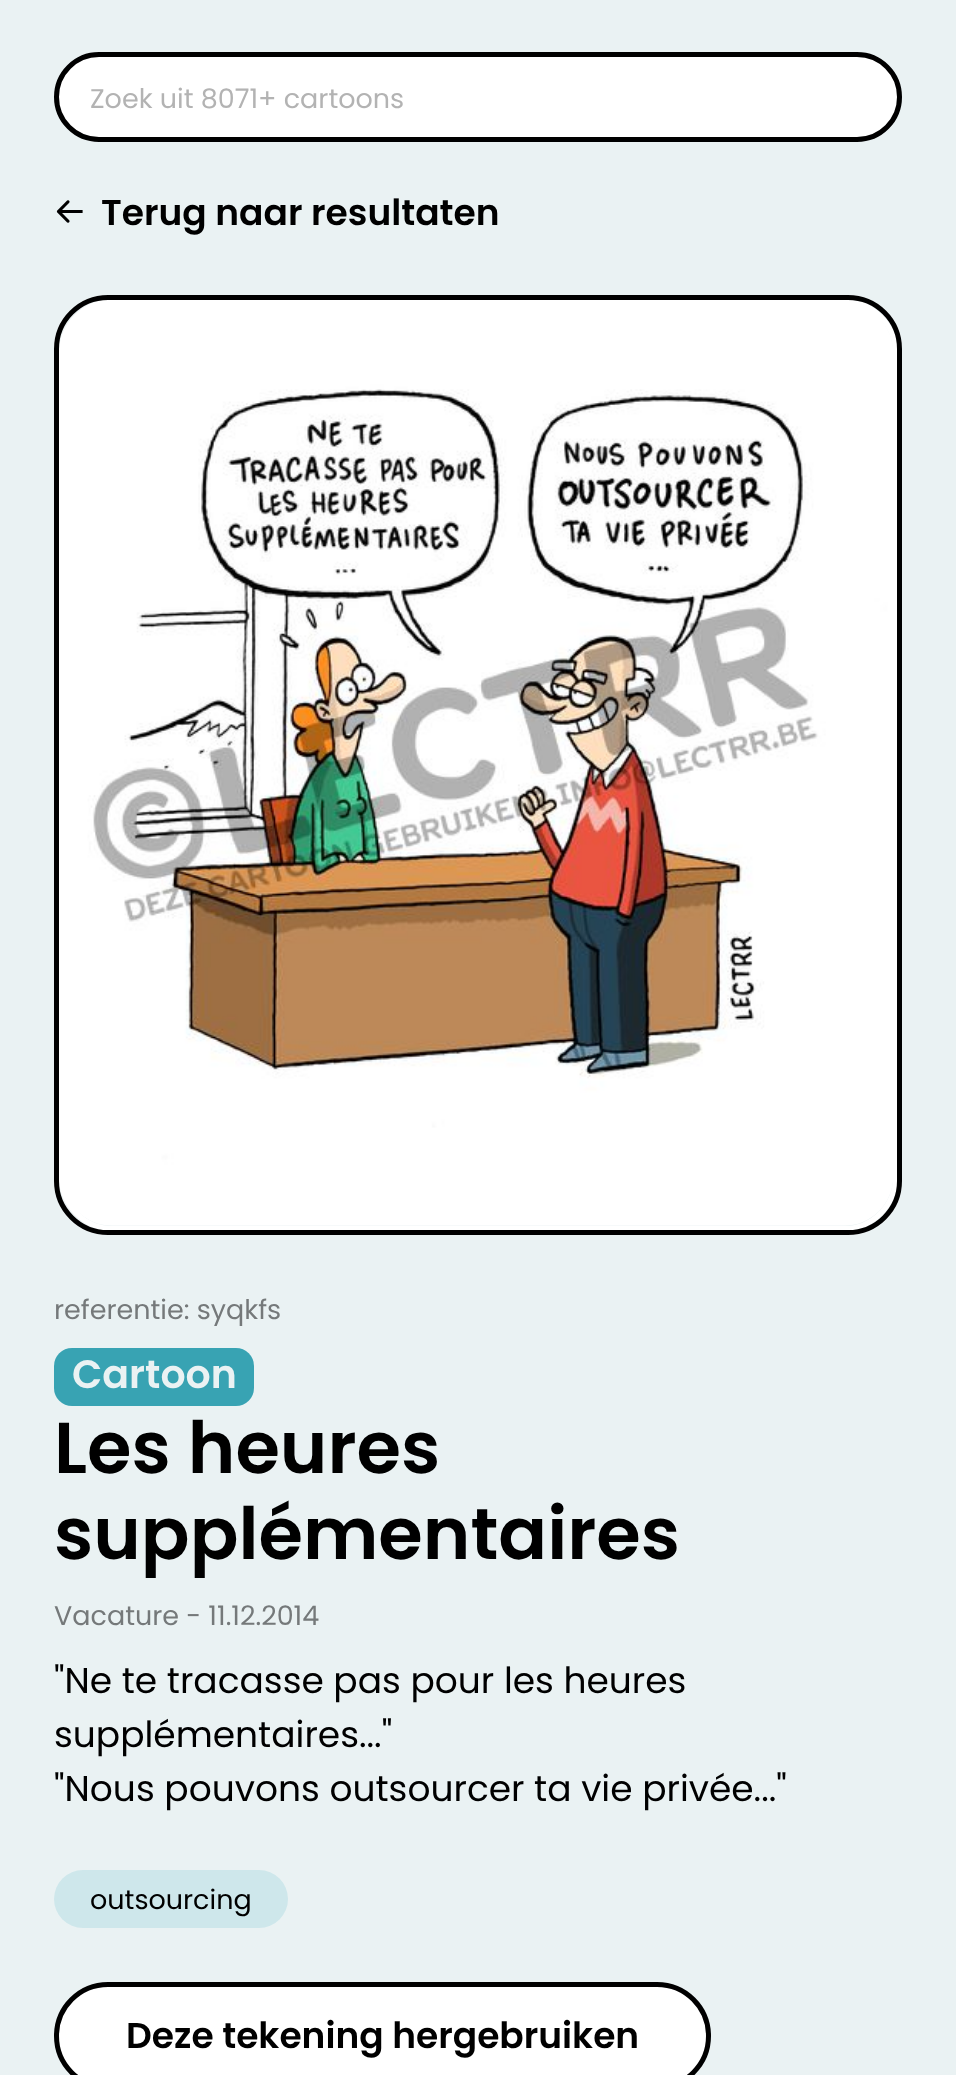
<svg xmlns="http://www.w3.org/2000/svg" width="956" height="2075">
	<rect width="100%" height="100%" fill="#EAF2F3" />
	<rect x="56.5" y="54.5" width="843" height="85" rx="42.5" fill="#FFFFFF" stroke="#000000" stroke-width="5" />
	<text x="90" y="108" font-family="Poppins" font-size="27" fill="#B3B3B3">Zoek uit 8071+ cartoons</text>
	<image x="56" y="200" width="27" height="23" href="assets/img1.png" />
	<text x="101" y="225" font-family="Poppins" font-size="36" font-weight="600" fill="#000000">Terug naar resultaten</text>
	<rect x="56.5" y="297.5" width="843" height="935" rx="51.5" fill="none" stroke="#FFFFFF" stroke-width="5" />
	<rect x="61.5" y="301.5" width="834" height="927" rx="51.5" fill="none" stroke="#FFFFFF" stroke-width="5" />
	<image x="64" y="304" width="829" height="922" href="assets/img2.png" />
	<rect x="56.5" y="297.5" width="843" height="935" rx="51.5" fill="none" stroke="#000000" stroke-width="5" />
	<text x="54" y="1319" font-family="Poppins" font-size="27" fill="#75797A">referentie: syqkfs</text>
	<rect x="54" y="1348" width="200" height="58" rx="18" fill="#38A3B3" />
	<text x="72" y="1388" font-family="Poppins" font-size="39.5" font-weight="600" fill="#EAF2F3">Cartoon</text>
	<g font-family="Poppins" font-size="72" font-weight="600" fill="#000000">
		<text x="54" y="1473">Les heures</text>
		<text x="54" y="1559">supplémentaires</text>
	</g>
	<text x="54" y="1625" font-family="Poppins" font-size="27" fill="#75797A">Vacature - 11.12.2014</text>
	<g font-family="Poppins" font-size="36" fill="#000000">
		<text x="54" y="1693">"Ne te tracasse pas pour les heures</text>
		<text x="54" y="1747">supplémentaires..."</text>
		<text x="54" y="1801">"Nous pouvons outsourcer ta vie privée..."</text>
	</g>
	<rect x="54" y="1870" width="234" height="58" rx="29" fill="#CEE7EB" />
	<text x="90" y="1909" font-family="Poppins" font-size="27" fill="#000000">outsourcing</text>
	<rect x="56.5" y="1984.5" width="652" height="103" rx="51.5" fill="#FFFFFF" stroke="#000000" stroke-width="5" />
	<text x="126" y="2048" font-family="Poppins" font-size="36" font-weight="600" fill="#000000">Deze tekening hergebruiken</text>
</svg>
